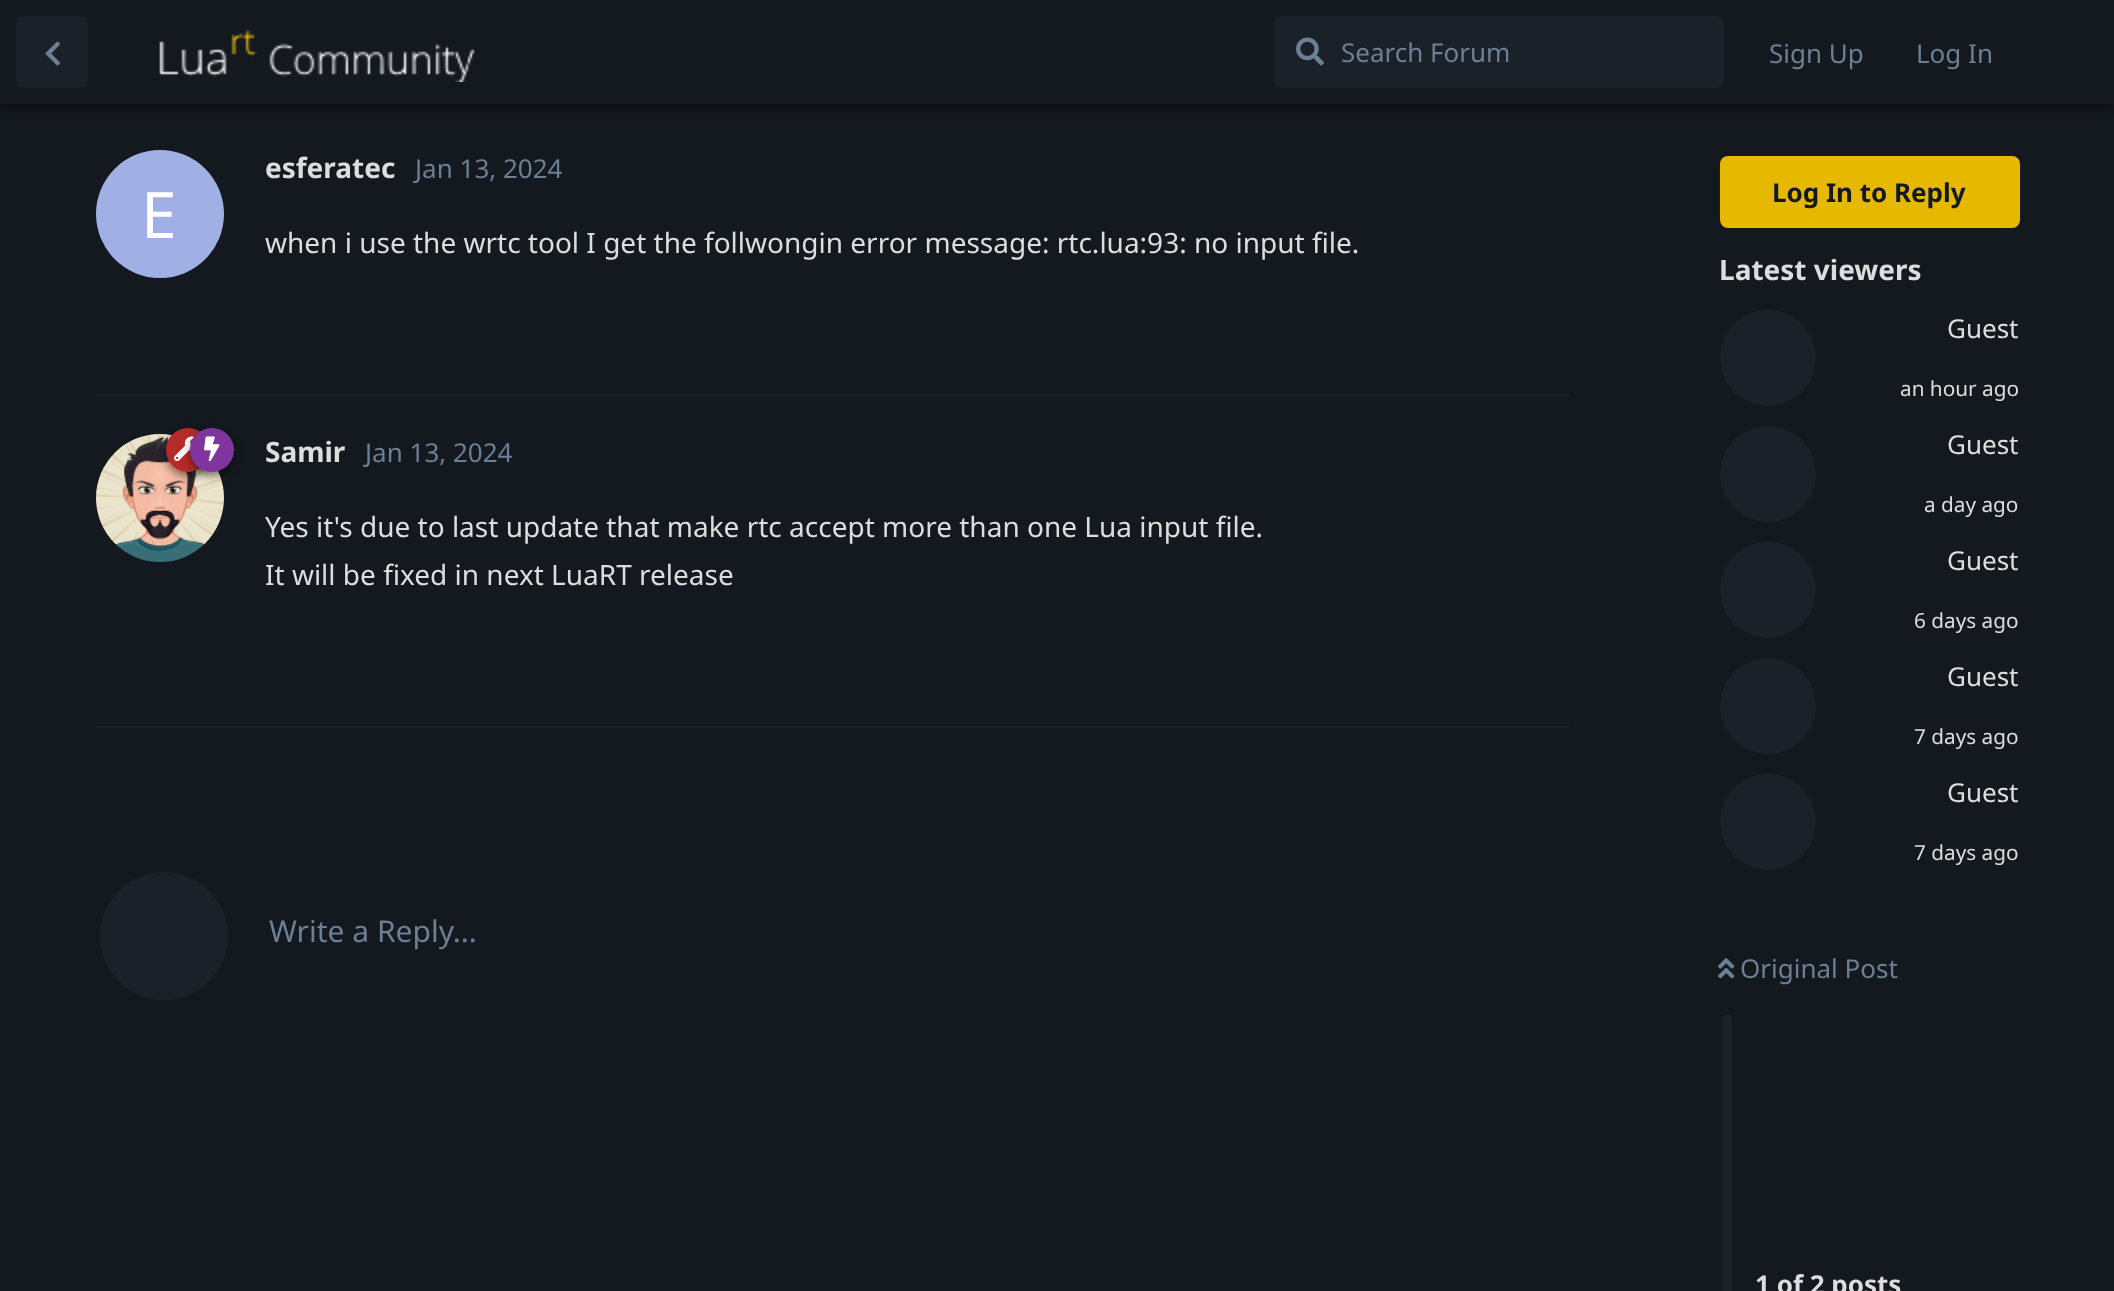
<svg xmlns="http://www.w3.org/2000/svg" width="2114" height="1291">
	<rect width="100%" height="100%" fill="#14191F" />
	<rect x="0" y="4" width="2114" height="104" fill="#000000" fill-opacity="0.5" filter="blur(6px)" />
	<rect x="0" y="0" width="2114" height="104" fill="#14191F" />
	<rect x="16" y="16" width="72" height="72" rx="8" fill="#1B2128" />
	<image x="45" y="41" width="15" height="25" href="assets/img1.png" />
	<image x="159" y="29" width="316" height="53" href="assets/img2.png" />
	<rect x="1274" y="16" width="450" height="72" rx="8" fill="#1B2128" />
	<image x="1296" y="37" width="28" height="29" href="assets/img3.png" />
	<g font-family="Noto Sans" font-size="26" fill="#6C7F93">
		<text x="1341" y="62">Search Forum</text>
		<text x="1769" y="63">Sign Up</text>
		<text x="1916" y="63">Log In</text>
	</g>
	<rect x="96" y="394" width="1474" height="2" fill="#1B2128" />
	<text x="265" y="178" font-family="Noto Sans" font-size="28" font-weight="700" fill="#DDDDDD">esferatec</text>
	<circle cx="160" cy="214" r="64" fill="#A0B0E5" />
	<text x="141" y="238" font-family="Noto Sans" font-size="64" fill="#FFFFFF">E</text>
	<text x="415" y="178" font-family="Noto Sans" font-size="26" fill="#6C7F93">Jan 13, 2024</text>
	<text x="265" y="253" font-family="Noto Sans" font-size="28" fill="#DDDDDD">when i use the wrtc tool I get the follwongin error message: rtc.lua:93: no input file.</text>
	<rect x="96" y="726" width="1474" height="2" fill="#1B2128" />
	<circle cx="160" cy="498" r="64" fill="#1B2128" />
	<image x="96" y="434" width="128" height="128" href="assets/img6.png" />
	<rect x="166" y="432" width="44" height="44" rx="22" fill="#000000" fill-opacity="0.5" filter="blur(4px)" />
	<circle cx="188" cy="450" r="22" fill="#B72A2A" />
	<image x="174" y="436" width="20" height="26" href="assets/img4.png" />
	<rect x="190" y="432" width="44" height="44" rx="22" fill="#000000" fill-opacity="0.5" filter="blur(4px)" />
	<circle cx="212" cy="450" r="22" fill="#80349E" />
	<image x="204" y="436" width="16" height="26" href="assets/img5.png" />
	<text x="265" y="462" font-family="Noto Sans" font-size="28" font-weight="700" fill="#DDDDDD">Samir</text>
	<text x="365" y="462" font-family="Noto Sans" font-size="26" fill="#6C7F93">Jan 13, 2024</text>
	<g font-family="Noto Sans" font-size="28" fill="#DDDDDD">
		<text x="265" y="537">Yes it's due to last update that make rtc accept more than one Lua input file.</text>
		<text x="265" y="585">It will be fixed in next LuaRT release</text>
	</g>
	<circle cx="164" cy="936" r="64" fill="#1B2128" />
	<text x="269" y="942" font-family="Noto Sans" font-size="30" fill="#6C7F93">Write a Reply...</text>
	<rect x="1720" y="156" width="300" height="72" rx="8" fill="#E6B800" />
	<text x="1772" y="202" font-family="Noto Sans" font-size="26" font-weight="700" fill="#14191F">Log In to Reply</text>
	<text x="1719" y="280" font-family="Noto Sans" font-size="28" font-weight="700" fill="#DDDDDD">Latest viewers</text>
	<circle cx="1768" cy="358" r="48" fill="#1B2128" />
	<text x="1947" y="338" font-family="Noto Sans" font-size="26" fill="#DDDDDD">Guest</text>
	<text x="1900" y="396" font-family="Noto Sans" font-size="20.75" fill="#DDDDDD">an hour ago</text>
	<circle cx="1768" cy="474" r="48" fill="#1B2128" />
	<text x="1947" y="454" font-family="Noto Sans" font-size="26" fill="#DDDDDD">Guest</text>
	<text x="1924" y="512" font-family="Noto Sans" font-size="20.75" fill="#DDDDDD">a day ago</text>
	<circle cx="1768" cy="590" r="48" fill="#1B2128" />
	<text x="1947" y="570" font-family="Noto Sans" font-size="26" fill="#DDDDDD">Guest</text>
	<text x="1914" y="628" font-family="Noto Sans" font-size="20.75" fill="#DDDDDD">6 days ago</text>
	<circle cx="1768" cy="706" r="48" fill="#1B2128" />
	<text x="1947" y="686" font-family="Noto Sans" font-size="26" fill="#DDDDDD">Guest</text>
	<text x="1914" y="744" font-family="Noto Sans" font-size="20.75" fill="#DDDDDD">7 days ago</text>
	<circle cx="1768" cy="822" r="48" fill="#1B2128" />
	<text x="1947" y="802" font-family="Noto Sans" font-size="26" fill="#DDDDDD">Guest</text>
	<text x="1914" y="860" font-family="Noto Sans" font-size="20.75" fill="#DDDDDD">7 days ago</text>
	<image x="1718" y="958" width="17" height="21" href="assets/img7.png" />
	<text x="1740" y="978" font-family="Noto Sans" font-size="26" fill="#6C7F93">Original Post</text>
	<rect x="1722" y="1014" width="10" height="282" rx="5" fill="#1B2128" />
	<text x="1755" y="1294" font-family="Noto Sans" font-size="26" font-weight="700" fill="#DDDDDD">1 of 2 posts</text>
</svg>
